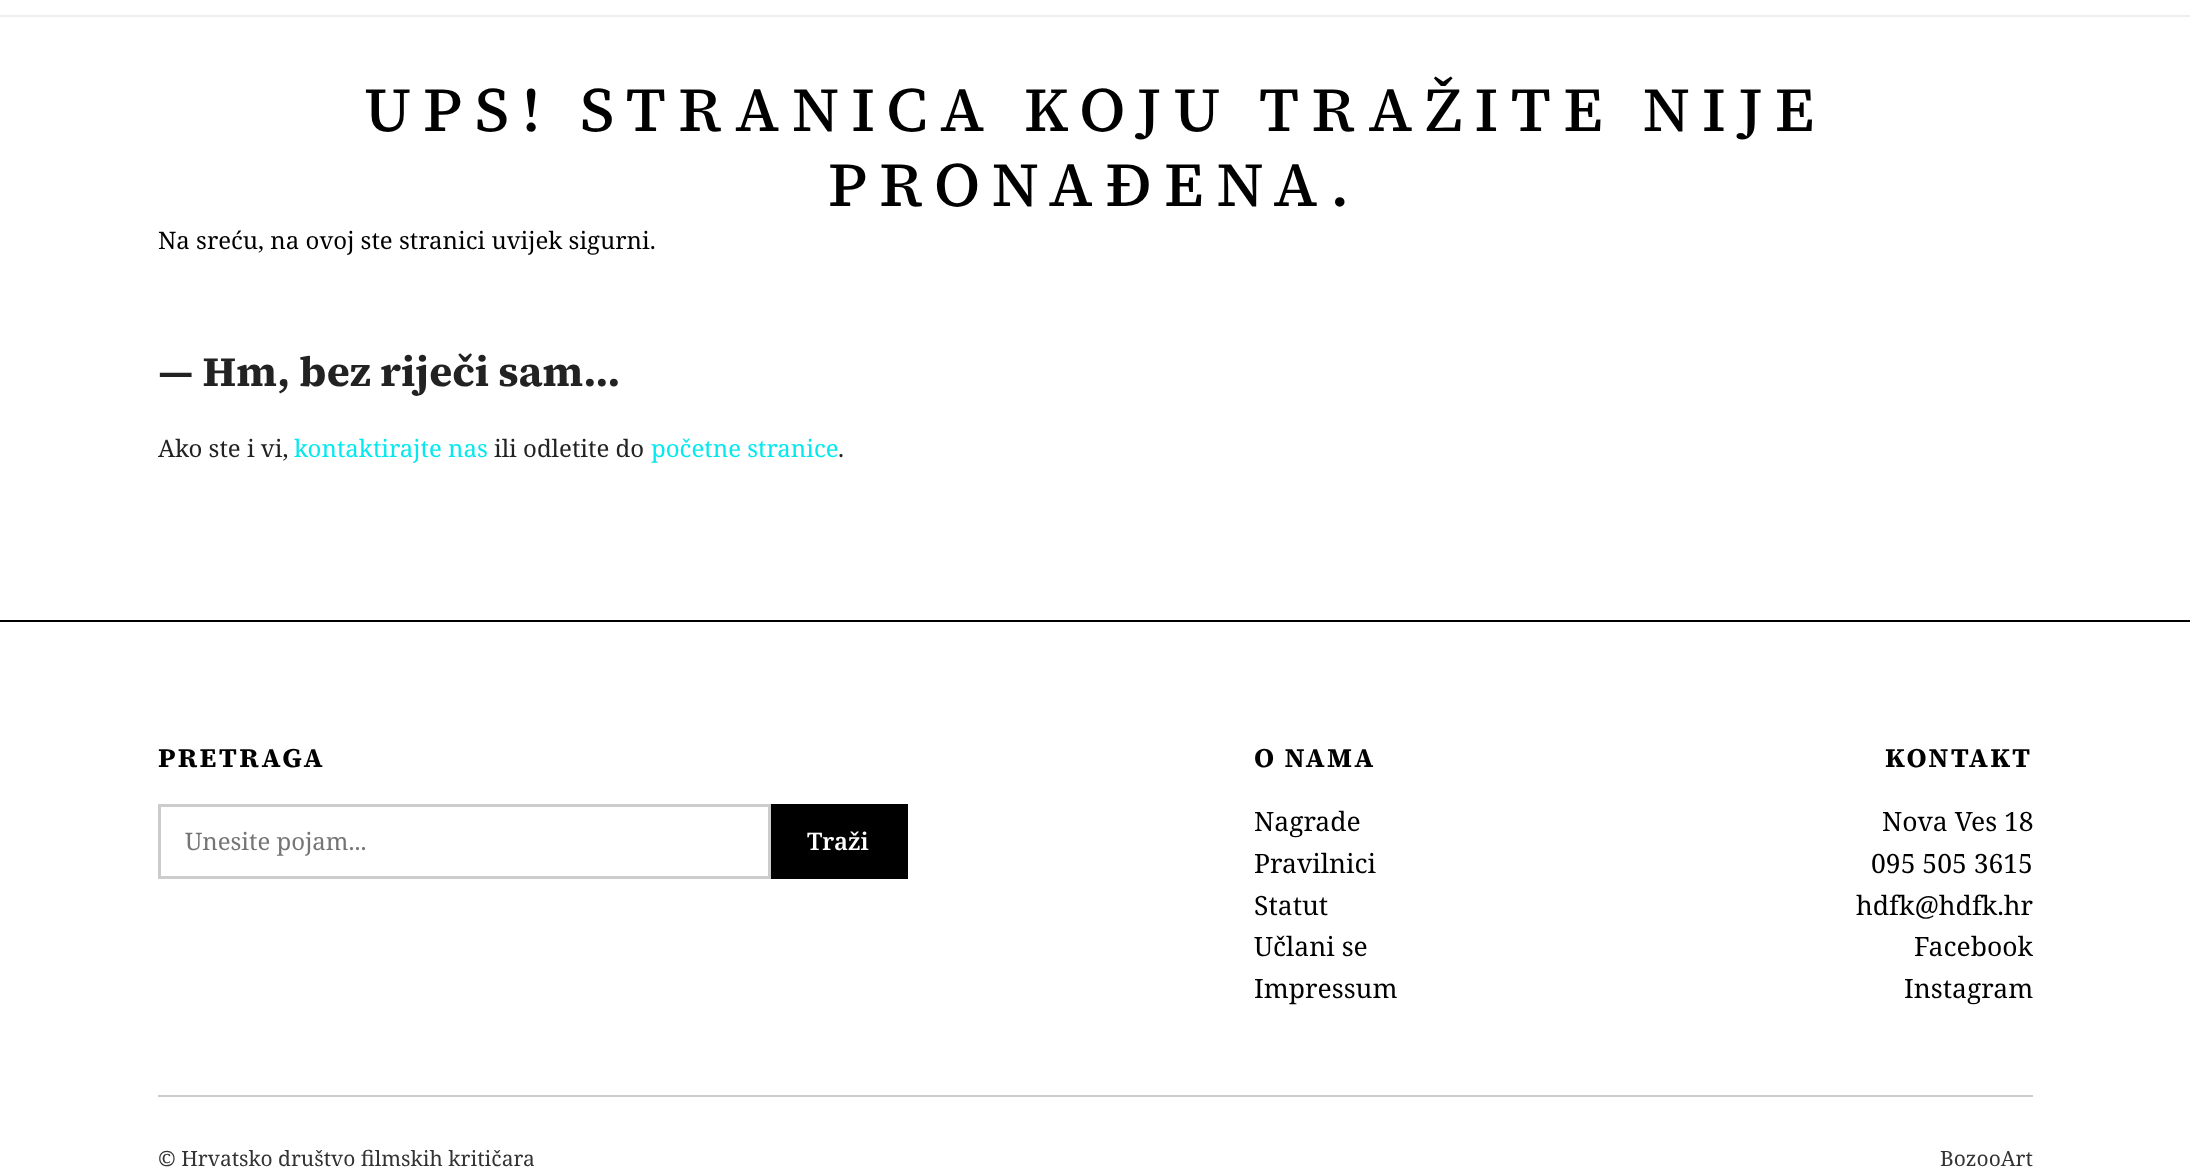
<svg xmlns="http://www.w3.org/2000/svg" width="2190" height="1176">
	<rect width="100%" height="100%" fill="#FFFFFF" />
	<rect x="0" y="15" width="2190" height="2" fill="#EEEEEE" />
	<g font-family="'Source Serif 4'" font-size="62.4" font-weight="500" letter-spacing="12.5" fill="#000000">
		<text x="364" y="131">UPS! STRANICA KOJU TRAŽITE NIJE</text>
		<text x="828" y="206">PRONAĐENA.</text>
	</g>
	<text x="158" y="249" font-family="Noto Serif" font-size="24" fill="#000000">Na sreću, na ovoj ste stranici uvijek sigurni.</text>
	<text x="158" y="386" font-family="'Source Serif 4'" font-size="42" font-weight="700" fill="#222222">— Hm, bez riječi sam...</text>
	<text x="158" y="457" font-family="Noto Serif" font-size="24" fill="#222222">Ako ste i vi,</text>
	<text x="294" y="457" font-family="Noto Serif" font-size="24" fill="#05E8ED">kontaktirajte nas</text>
	<text x="494" y="457" font-family="Noto Serif" font-size="24" fill="#222222">ili odletite do</text>
	<text x="651" y="457" font-family="Noto Serif" font-size="24" fill="#05E8ED">početne stranice</text>
	<text x="838" y="457" font-family="Noto Serif" font-size="24" fill="#222222">.</text>
	<rect x="0" y="620" width="2190" height="2" fill="#000000" />
	<text x="158" y="767" font-family="'Source Serif 4'" font-size="27" font-weight="700" letter-spacing="2.25" fill="#000000">PRETRAGA</text>
	<rect x="159.5" y="805.5" width="610" height="72" fill="none" stroke="#CCCCCC" stroke-width="3" />
	<text x="185" y="850" font-family="Noto Serif" font-size="24" fill="#757575">Unesite pojam...</text>
	<rect x="771" y="804" width="137" height="75" fill="#000000" />
	<text x="807" y="850" font-family="Noto Serif" font-size="24" font-weight="600" fill="#FFFFFF">Traži</text>
	<text x="1254" y="767" font-family="'Source Serif 4'" font-size="27" font-weight="700" letter-spacing="2.25" fill="#000000">O NAMA</text>
	<g font-family="Noto Serif" font-size="26.5" fill="#000000">
		<text x="1254" y="831">Nagrade</text>
		<text x="1254" y="873">Pravilnici</text>
		<text x="1254" y="915">Statut</text>
		<text x="1254" y="956">Učlani se</text>
		<text x="1254" y="998">Impressum</text>
	</g>
	<text x="1885" y="767" font-family="'Source Serif 4'" font-size="27" font-weight="700" letter-spacing="2.25" fill="#000000">KONTAKT</text>
	<g font-family="Noto Serif" font-size="26.5" fill="#000000">
		<text x="1882" y="831">Nova Ves 18</text>
		<text x="1871" y="873">095 505 3615</text>
		<text x="1856" y="915">hdfk@hdfk.hr</text>
		<text x="1914" y="956">Facebook</text>
		<text x="1904" y="998">Instagram</text>
	</g>
	<rect x="158" y="1095" width="1875" height="2" fill="#CCCCCC" />
	<g font-family="Noto Serif" font-size="21" fill="#333333">
		<text x="158" y="1166">© Hrvatsko društvo filmskih kritičara</text>
		<text x="1940" y="1166">BozooArt</text>
	</g>
</svg>
